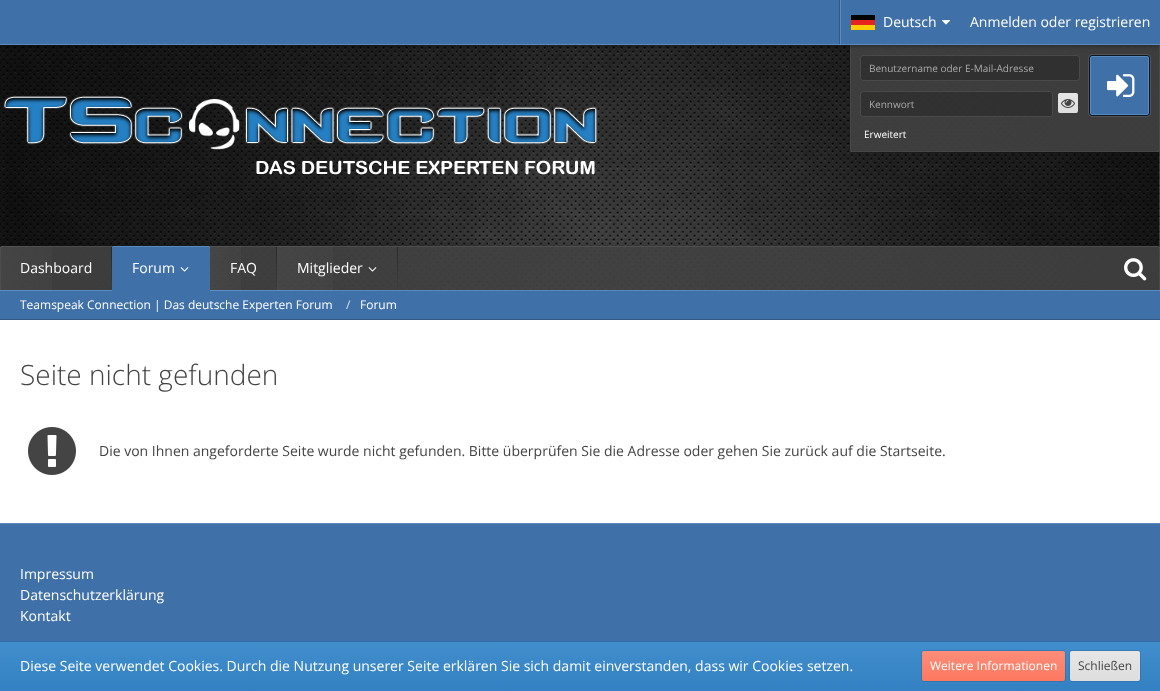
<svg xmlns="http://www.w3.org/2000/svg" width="1160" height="691">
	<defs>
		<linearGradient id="g1" gradientUnits="userSpaceOnUse" x1="1068" y1="93" x2="1068" y2="113"><stop offset="0" stop-color="#E6E6E6" /><stop offset="1" stop-color="#DEDEDE" /></linearGradient>
		<linearGradient id="g2" gradientUnits="userSpaceOnUse" x1="0" y1="269" x2="112" y2="269"><stop offset="0" stop-color="#FFFFFF" stop-opacity="0.04" /><stop offset="1" stop-color="#FFFFFF" stop-opacity="0" /></linearGradient>
		<linearGradient id="g3" gradientUnits="userSpaceOnUse" x1="112" y1="247" x2="112" y2="291"><stop offset="0" stop-color="#000000" stop-opacity="0.35" /><stop offset="1" stop-color="#000000" stop-opacity="0" /></linearGradient>
		<linearGradient id="g4" gradientUnits="userSpaceOnUse" x1="112" y1="269" x2="210" y2="269"><stop offset="0" stop-color="#FFFFFF" stop-opacity="0.04" /><stop offset="1" stop-color="#FFFFFF" stop-opacity="0" /></linearGradient>
		<clipPath id="clip1"><rect x="0" y="246" width="1090" height="45" /></clipPath>
		<linearGradient id="g5" gradientUnits="userSpaceOnUse" x1="210" y1="269" x2="277" y2="269"><stop offset="0" stop-color="#FFFFFF" stop-opacity="0.04" /><stop offset="1" stop-color="#FFFFFF" stop-opacity="0" /></linearGradient>
		<linearGradient id="g6" gradientUnits="userSpaceOnUse" x1="277" y1="247" x2="277" y2="291"><stop offset="0" stop-color="#000000" stop-opacity="0.35" /><stop offset="1" stop-color="#000000" stop-opacity="0" /></linearGradient>
		<linearGradient id="g7" gradientUnits="userSpaceOnUse" x1="277" y1="269" x2="398" y2="269"><stop offset="0" stop-color="#FFFFFF" stop-opacity="0.04" /><stop offset="1" stop-color="#FFFFFF" stop-opacity="0" /></linearGradient>
		<linearGradient id="g8" gradientUnits="userSpaceOnUse" x1="398" y1="247" x2="398" y2="291"><stop offset="0" stop-color="#000000" stop-opacity="0.35" /><stop offset="1" stop-color="#000000" stop-opacity="0" /></linearGradient>
		<linearGradient id="g9" gradientUnits="userSpaceOnUse" x1="580" y1="641" x2="580" y2="691"><stop offset="0" stop-color="#428ECD" /><stop offset="1" stop-color="#3381C2" /></linearGradient>
		<linearGradient id="g10" gradientUnits="userSpaceOnUse" x1="994" y1="651" x2="994" y2="681"><stop offset="0" stop-color="#FD8D79" /><stop offset="1" stop-color="#FD7860" /></linearGradient>
		<linearGradient id="g11" gradientUnits="userSpaceOnUse" x1="1105" y1="651" x2="1105" y2="681"><stop offset="0" stop-color="#E6E6E6" /><stop offset="1" stop-color="#DEDEDE" /></linearGradient>
	</defs>
	<rect width="100%" height="100%" fill="#FFFFFF" />
	<image x="0" y="45" width="1160" height="245" href="assets/img1.png" />
	<path d="M849.5 44.5H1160.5V150C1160.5 151.5 1159.5 152.5 1158 152.5H852C850.5 152.5 849.5 151.5 849.5 150Z" fill="none" stroke="#000000" stroke-opacity="0.1" />
	<path d="M850 45H1160V150C1160 151 1159 152 1158 152H852C851 152 850 151 850 150Z" fill="#414141" fill-opacity="0.7" />
	<path d="M850 45V150C850 151 851 152 852 152H1158C1159 152 1160 151 1160 150V45Z" fill="#414141" fill-opacity="0.7" />
	<path d="M850 45V150C850 152 852 152 853 152C852 152 851 151 851 150V45Z" fill="#484848" />
	<path d="M1157 152C1158 152 1160 152 1160 150V45H1159V150C1159 151 1158 152 1157 152Z" fill="#FFFFFF" fill-opacity="0.05" />
	<rect x="0" y="0" width="1160" height="45" fill="#000000" fill-opacity="0.5" filter="blur(2.5px)" />
	<rect x="0" y="0" width="1160" height="44" fill="#3F70A7" />
	<rect x="0" y="44" width="1160" height="1" fill="#598AC0" />
	<rect x="839" y="0" width="1" height="44" fill="#315782" />
	<rect x="840" y="0" width="1" height="44" fill="#598AC0" />
	<rect x="851" y="15" width="24" height="5" fill="#010202" />
	<rect x="851" y="25" width="24" height="5" fill="#FFCC04" />
	<rect x="851" y="20" width="24" height="5" fill="#E52420" />
	<text x="883" y="27" font-family="Open Sans" font-size="14" fill="#FFFFFF">Deutsch</text>
	<image x="942" y="20" width="8" height="5" href="assets/img2.png" />
	<text x="970" y="27" font-family="Open Sans" font-size="14" fill="#FFFFFF">Anmelden oder registrieren</text>
	<image x="3" y="96" width="595" height="79" href="assets/img3.png" />
	<path d="M850 149C850 150 850 152 852 152H1159L1160 151V149C1160 150 1159 151 1158 151H852C851 151 850 150 850 149Z" fill="#FFFFFF" fill-opacity="0.05" />
	<rect x="860" y="55" width="220" height="26" rx="3" fill="#000000" fill-opacity="0.2" />
	<rect x="860.5" y="55.5" width="219" height="25" rx="2.5" fill="none" stroke="#FFFFFF" stroke-opacity="0.12" />
	<text x="869" y="72" font-family="Open Sans" font-size="10" fill="#A9A9A9">Benutzername oder E-Mail-Adresse</text>
	<rect x="860" y="91" width="193" height="26" rx="3" fill="#000000" fill-opacity="0.2" />
	<rect x="860.5" y="91.5" width="192" height="25" rx="2.5" fill="none" stroke="#FFFFFF" stroke-opacity="0.12" />
	<text x="869" y="108" font-family="Open Sans" font-size="10" fill="#A9A9A9">Kennwort</text>
	<rect x="1058" y="93" width="20" height="20" rx="2" fill="url(#g1)" />
	<image x="1061" y="99" width="14" height="9" href="assets/img4.png" />
	<rect x="1088.5" y="54.5" width="62" height="62" rx="3.5" fill="none" stroke="#545454" />
	<rect x="1089" y="55" width="61" height="61" rx="3" fill="#3F70A7" />
	<rect x="1090.5" y="56.5" width="58" height="58" rx="1.5" fill="none" stroke="#598AC0" />
	<rect x="1089.5" y="55.5" width="60" height="60" rx="2.5" fill="none" stroke="#000000" stroke-opacity="0.8" />
	<image x="1107" y="74" width="28" height="23" href="assets/img5.png" />
	<text x="864" y="138" font-family="Open Sans" font-size="10" fill="#FFFFFF">Erweitert</text>
	<path d="M2 245C0 245 0 247 0 248C0 247 1 246 2 246H1158C1159 246 1160 247 1160 248C1160 247 1160 245 1158 245Z" fill="#000000" fill-opacity="0.1" />
	<path d="M2 246H1158C1159 246 1160 247 1160 248V290H0V248C0 247 1 246 2 246Z" fill="#414141" fill-opacity="0.7" />
	<path d="M2 246C1 246 0 247 0 248V290H1160V248C1160 247 1159 246 1158 246Z" fill="#414141" fill-opacity="0.7" />
	<path d="M1159 290H1160V248C1160 247 1159 246 1158 246H1157C1158 246 1159 247 1159 248Z" fill="#FFFFFF" fill-opacity="0.05" />
	<path d="M2 246C1 246 0 247 0 248V290H1V248C1 247 2 246 3 246Z" fill="#FFFFFF" fill-opacity="0.05" />
	<path d="M2 247H1158C1159 247 1160 248 1160 249V247L1158 246H2C1 246 0 247 0 248V249C0 248 1 247 2 247Z" fill="#FFFFFF" fill-opacity="0.08" />
	<rect x="0" y="290" width="1160" height="1" fill="#598AC0" />
	<rect x="0" y="246" width="52" height="45" fill="url(#g2)" />
	<text x="20" y="273" font-family="Open Sans" font-size="14" fill="#FFFFFF">Dashboard</text>
	<rect x="111" y="247" width="1" height="44" fill="url(#g3)" />
	<rect x="112" y="246" width="2" height="2" fill="url(#g4)" />
	<path d="M114 246H208C209 246 210 247 210 248V291H112V248C112 247 113 246 114 246Z" fill="#3F70A7" />
	<g clip-path="url(#clip1)">
		<path d="M114 247H208C209 247 210 248 210 249C210 248 210 246 208 246H130C128 246 112 242 112 249C112 248 113 247 114 247Z" fill="#598AC0" />
	</g>
	<text x="132" y="273" font-family="Open Sans" font-size="14" fill="#FFFFFF">Forum</text>
	<image x="180" y="267" width="9" height="5" href="assets/img6.png" />
	<rect x="210" y="246" width="31" height="45" fill="url(#g5)" />
	<text x="230" y="273" font-family="Open Sans" font-size="14" fill="#FFFFFF">FAQ</text>
	<rect x="276" y="247" width="1" height="44" fill="url(#g6)" />
	<rect x="277" y="246" width="56" height="45" fill="url(#g7)" />
	<text x="297" y="273" font-family="Open Sans" font-size="14" fill="#FFFFFF">Mitglieder</text>
	<image x="368" y="267" width="9" height="5" href="assets/img7.png" />
	<rect x="397" y="247" width="1" height="44" fill="url(#g8)" />
	<image x="1124" y="258" width="23" height="23" href="assets/img8.png" />
	<rect x="0" y="291" width="1160" height="28" fill="#3F70A7" />
	<rect x="0" y="319" width="1160" height="1" fill="#315782" />
	<text x="20" y="309" font-family="Open Sans" font-size="12" fill="#FFFFFF">Teamspeak Connection | Das deutsche Experten Forum</text>
	<text x="346" y="309" font-family="Open Sans" font-size="12" fill="#D9E2ED">/</text>
	<text x="360" y="309" font-family="Open Sans" font-size="12" fill="#FFFFFF">Forum</text>
	<text x="20" y="385" font-family="Open Sans" font-size="28" font-weight="300" fill="#444444">Seite nicht gefunden</text>
	<image x="28" y="427" width="48" height="48" href="assets/img9.png" />
	<text x="99" y="456" font-family="Open Sans" font-size="14" fill="#444444">Die von Ihnen angeforderte Seite wurde nicht gefunden. Bitte überprüfen Sie die Adresse oder gehen Sie zurück auf die Startseite.</text>
	<rect x="0" y="524" width="1160" height="117" fill="#3F70A7" />
	<rect x="0" y="523" width="1160" height="1" fill="#598AC0" />
	<g font-family="Open Sans" font-size="14" fill="#FFFFFF">
		<text x="20" y="579">Impressum</text>
		<text x="20" y="600">Datenschutzerklärung</text>
		<text x="20" y="621">Kontakt</text>
	</g>
	<rect x="0" y="642" width="1160" height="49" fill="url(#g9)" />
	<rect x="0" y="641" width="1160" height="1" fill="#306EA9" />
	<text x="20" y="671" font-family="Open Sans" font-size="14" fill="#FFFFFF">Diese Seite verwendet Cookies. Durch die Nutzung unserer Seite erklären Sie sich damit einverstanden, dass wir Cookies setzen.</text>
	<rect x="921.5" y="650.5" width="144" height="31" rx="2.5" fill="none" stroke="#000000" stroke-opacity="0.1" />
	<rect x="922" y="651" width="143" height="30" rx="2" fill="url(#g10)" />
	<text x="930" y="670" font-family="Open Sans" font-size="12" fill="#FFFFFF">Weitere Informationen</text>
	<rect x="1069.5" y="650.5" width="71" height="31" rx="2.5" fill="none" stroke="#000000" stroke-opacity="0.1" />
	<rect x="1070" y="651" width="70" height="30" rx="2" fill="url(#g11)" />
	<text x="1078" y="670" font-family="Open Sans" font-size="12" fill="#444444">Schließen</text>
</svg>
